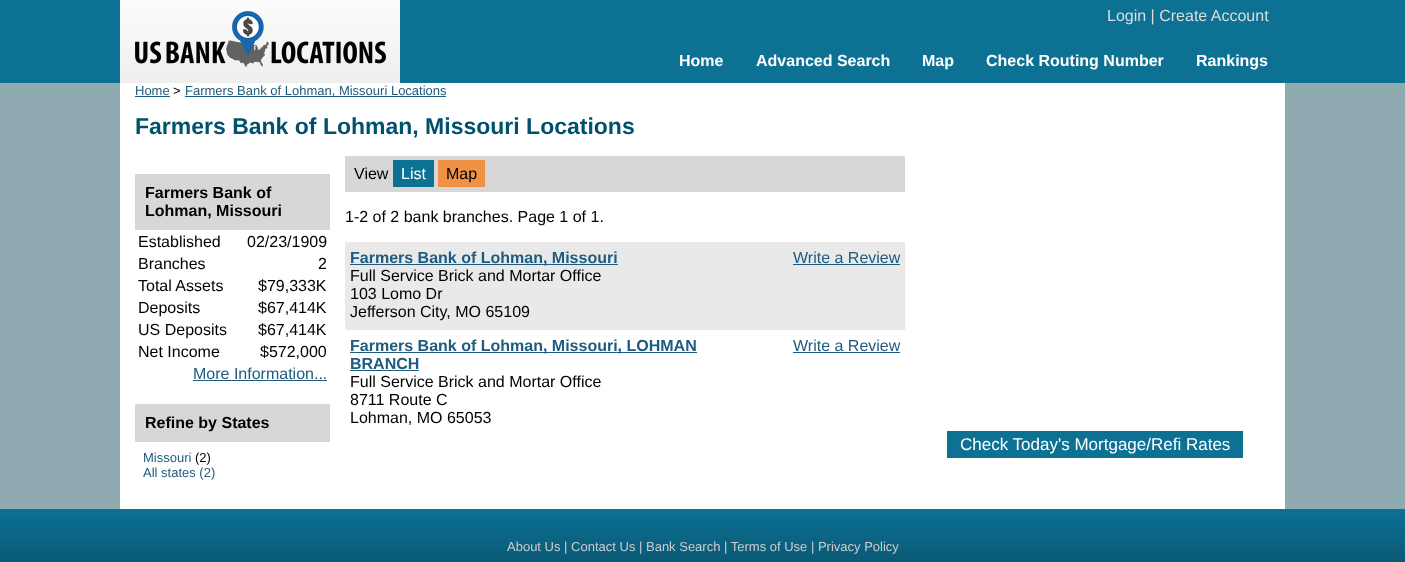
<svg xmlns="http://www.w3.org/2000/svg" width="1405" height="562">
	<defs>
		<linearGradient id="g1" gradientUnits="userSpaceOnUse" x1="260" y1="0" x2="260" y2="83"><stop offset="0" stop-color="#FCFCFC" /><stop offset="1" stop-color="#EEEEEE" /></linearGradient>
		<linearGradient id="g2" gradientUnits="userSpaceOnUse" x1="703" y1="509" x2="703" y2="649"><stop offset="0" stop-color="#0D7194" /><stop offset="1" stop-color="#063343" /></linearGradient>
	</defs>
	<rect width="100%" height="100%" fill="#90AAB2" />
	<rect x="0" y="0" width="1405" height="83" fill="#0D7194" />
	<rect x="120" y="0" width="280" height="83" fill="url(#g1)" />
	<image x="135" y="11" width="251" height="56" href="assets/img1.png" />
	<text x="1107" y="21" font-family="Liberation Sans" font-size="16" fill="#DDDDDD">Login | Create Account</text>
	<g font-family="Liberation Sans" font-size="16" font-weight="700" fill="#FFFFFF">
		<text x="679" y="66">Home</text>
		<text x="756" y="66">Advanced Search</text>
		<text x="922" y="66">Map</text>
		<text x="986" y="66">Check Routing Number</text>
		<text x="1196" y="66">Rankings</text>
	</g>
	<rect x="120" y="83" width="1165" height="426" fill="#FFFFFF" />
	<text x="135" y="95" font-family="Liberation Sans" font-size="13" fill="#1E5B7E">Home</text>
	<rect x="135" y="96" width="35" height="1" fill="#1E5B7E" />
	<text x="173" y="95" font-family="Liberation Sans" font-size="13" fill="#000000">&gt;</text>
	<rect x="185" y="96" width="261" height="1" fill="#1E5B7E" />
	<text x="185" y="95" font-family="Liberation Sans" font-size="13" fill="#1E5B7E">Farmers Bank of Lohman, Missouri Locations</text>
	<text x="135" y="134" font-family="Liberation Sans" font-size="23" font-weight="700" fill="#01516D">Farmers Bank of Lohman, Missouri Locations</text>
	<rect x="135" y="174" width="195" height="56" fill="#D7D7D7" />
	<g font-family="Liberation Sans" font-size="16" font-weight="700" fill="#000000">
		<text x="145" y="198">Farmers Bank of</text>
		<text x="145" y="216">Lohman, Missouri</text>
	</g>
	<g font-family="Liberation Sans" font-size="16" fill="#000000">
		<text x="138" y="247">Established</text>
		<text x="247" y="247">02/23/1909</text>
		<text x="138" y="269">Branches</text>
		<text x="318" y="269">2</text>
		<text x="138" y="291">Total Assets</text>
		<text x="258" y="291">$79,333K</text>
		<text x="138" y="313">Deposits</text>
		<text x="258" y="313">$67,414K</text>
		<text x="138" y="335">US Deposits</text>
		<text x="258" y="335">$67,414K</text>
		<text x="138" y="357">Net Income</text>
		<text x="260" y="357">$572,000</text>
	</g>
	<text x="193" y="379" font-family="Liberation Sans" font-size="16" fill="#1E5B7E">More Information...</text>
	<rect x="193" y="380" width="134" height="1" fill="#1E5B7E" />
	<rect x="135" y="404" width="195" height="38" fill="#D7D7D7" />
	<text x="145" y="428" font-family="Liberation Sans" font-size="16" font-weight="700" fill="#000000">Refine by States</text>
	<text x="143" y="462" font-family="Liberation Sans" font-size="13" fill="#1E5B7E">Missouri</text>
	<text x="195" y="462" font-family="Liberation Sans" font-size="13" fill="#000000">(2)</text>
	<text x="143" y="477" font-family="Liberation Sans" font-size="13" fill="#1E5B7E">All states (2)</text>
	<rect x="345" y="156" width="560" height="36" fill="#D7D7D7" />
	<text x="354" y="179" font-family="Liberation Sans" font-size="16" fill="#000000">View</text>
	<rect x="393" y="160" width="41" height="27" fill="#0D7194" />
	<text x="401" y="179" font-family="Liberation Sans" font-size="16" fill="#FFFFFF">List</text>
	<rect x="438" y="160" width="47" height="27" fill="#F09245" />
	<g font-family="Liberation Sans" font-size="16" fill="#000000">
		<text x="446" y="179">Map</text>
		<text x="345" y="222">1-2 of 2 bank branches. Page 1 of 1.</text>
	</g>
	<rect x="345" y="242" width="560" height="88" fill="#E9E9E9" />
	<rect x="350" y="264" width="268" height="1" fill="#1E5B7E" />
	<text x="350" y="263" font-family="Liberation Sans" font-size="16" font-weight="700" fill="#1E5B7E">Farmers Bank of Lohman, Missouri</text>
	<text x="793" y="263" font-family="Liberation Sans" font-size="16" fill="#1E5B7E">Write a Review</text>
	<rect x="793" y="264" width="107" height="1" fill="#1E5B7E" />
	<g font-family="Liberation Sans" font-size="16" fill="#000000">
		<text x="350" y="281">Full Service Brick and Mortar Office</text>
		<text x="350" y="299">103 Lomo Dr</text>
		<text x="350" y="317">Jefferson City, MO 65109</text>
	</g>
	<rect x="350" y="352" width="347" height="1" fill="#1E5B7E" />
	<text x="350" y="351" font-family="Liberation Sans" font-size="16" font-weight="700" fill="#1E5B7E">Farmers Bank of Lohman, Missouri, LOHMAN</text>
	<text x="793" y="351" font-family="Liberation Sans" font-size="16" fill="#1E5B7E">Write a Review</text>
	<rect x="793" y="352" width="107" height="1" fill="#1E5B7E" />
	<text x="350" y="369" font-family="Liberation Sans" font-size="16" font-weight="700" fill="#1E5B7E">BRANCH</text>
	<rect x="350" y="370" width="69" height="1" fill="#1E5B7E" />
	<g font-family="Liberation Sans" font-size="16" fill="#000000">
		<text x="350" y="387">Full Service Brick and Mortar Office</text>
		<text x="350" y="405">8711 Route C</text>
		<text x="350" y="423">Lohman, MO 65053</text>
	</g>
	<rect x="947" y="431" width="296" height="27" fill="#0D7194" />
	<text x="960" y="450" font-family="Liberation Sans" font-size="17" fill="#FFFFFF">Check Today's Mortgage/Refi Rates</text>
	<rect x="0" y="509" width="1405" height="53" fill="url(#g2)" />
	<text x="507" y="551" font-family="Liberation Sans" font-size="13" fill="#CCCCCC">About Us | Contact Us | Bank Search | Terms of Use | Privacy Policy</text>
</svg>
